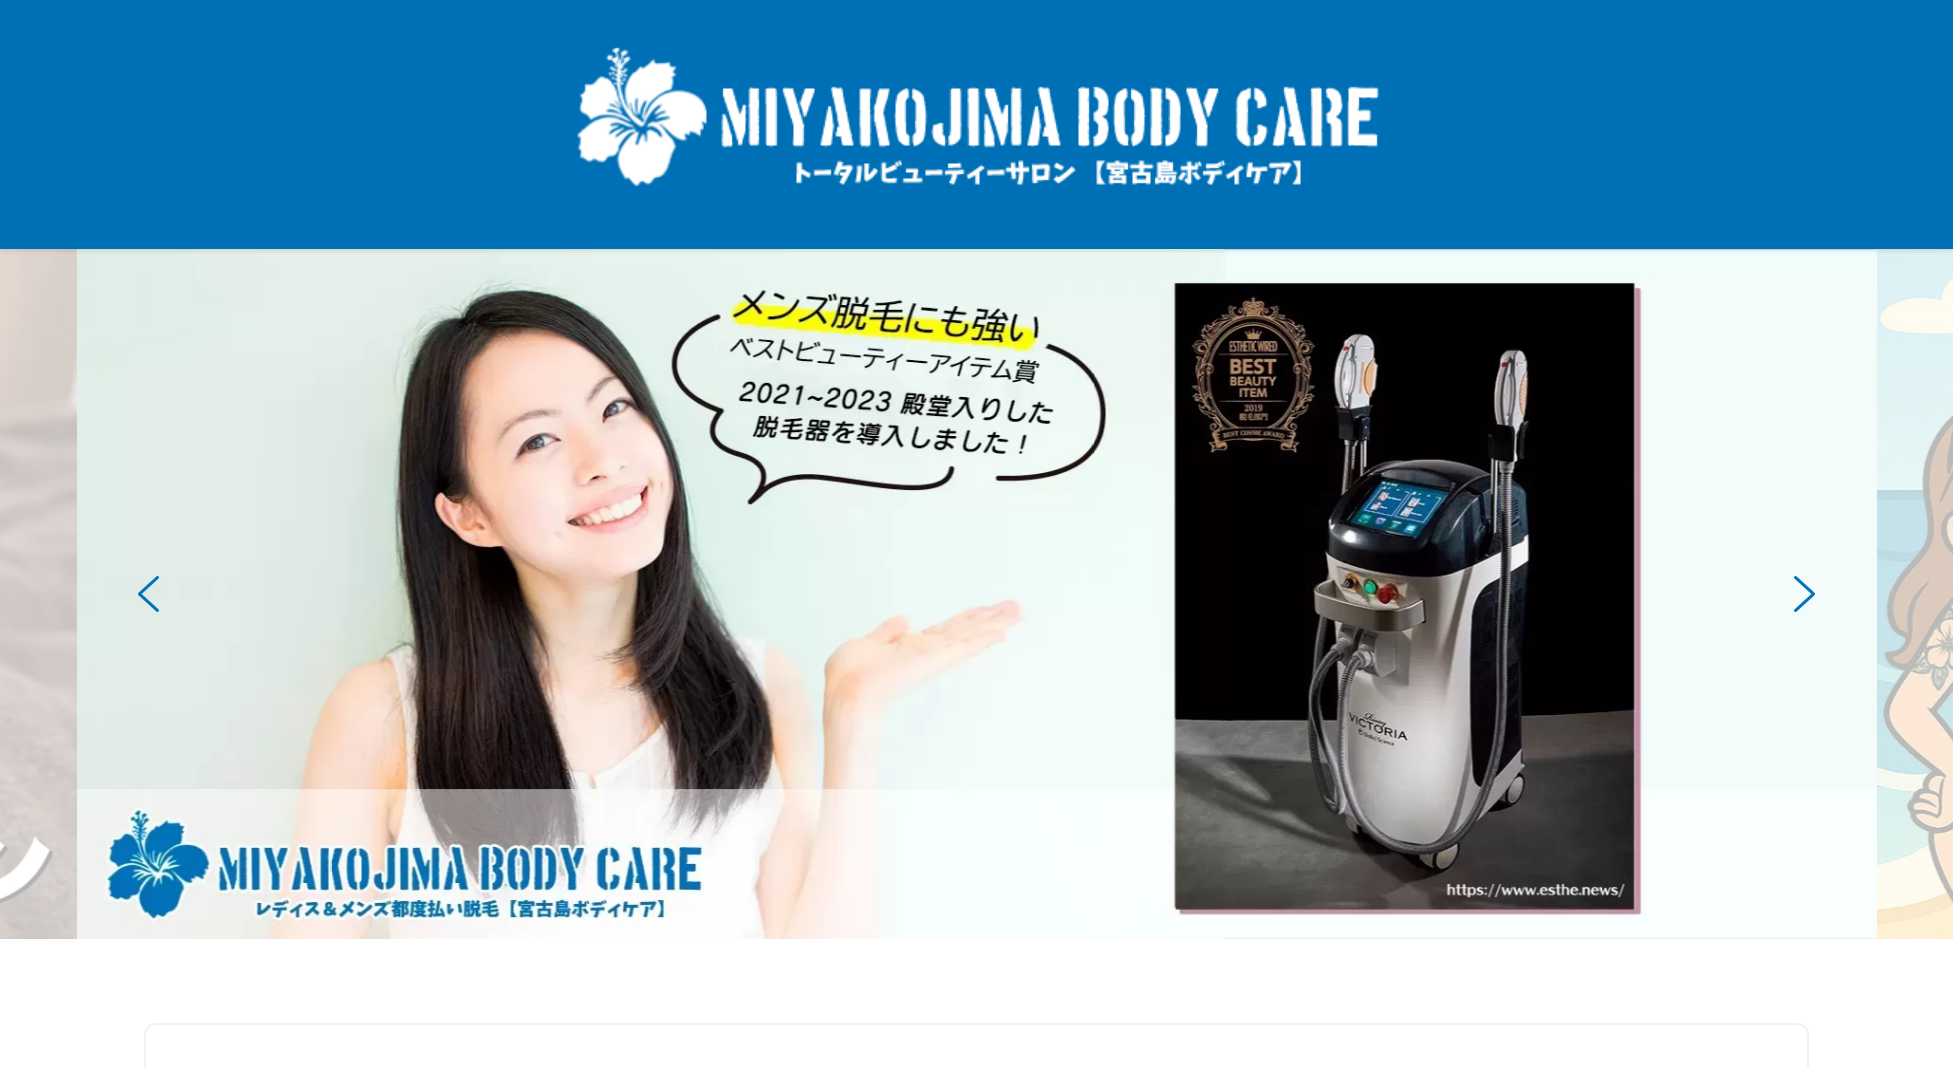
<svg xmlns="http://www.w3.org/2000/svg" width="1953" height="1068">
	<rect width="100%" height="100%" fill="#FFFFFF" />
	<image x="0" y="249" width="77" height="690" href="assets/img2.png" />
	<image x="77" y="249" width="1800" height="690" href="assets/img3.png" />
	<image x="1877" y="249" width="76" height="690" href="assets/img4.png" />
	<rect x="0" y="2" width="1953" height="249" fill="#000000" fill-opacity="0.1" filter="blur(2px)" />
	<rect x="0" y="0" width="1953" height="249" fill="#0070B6" />
	<image x="577" y="47" width="802" height="140" href="assets/img1.png" />
	<image x="138" y="576" width="21" height="36" href="assets/img5.png" />
	<image x="1794" y="576" width="21" height="36" href="assets/img6.png" />
	<rect x="145" y="1024" width="1663" height="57" rx="11" fill="none" stroke="#F2F2F2" stroke-width="2" />
</svg>
